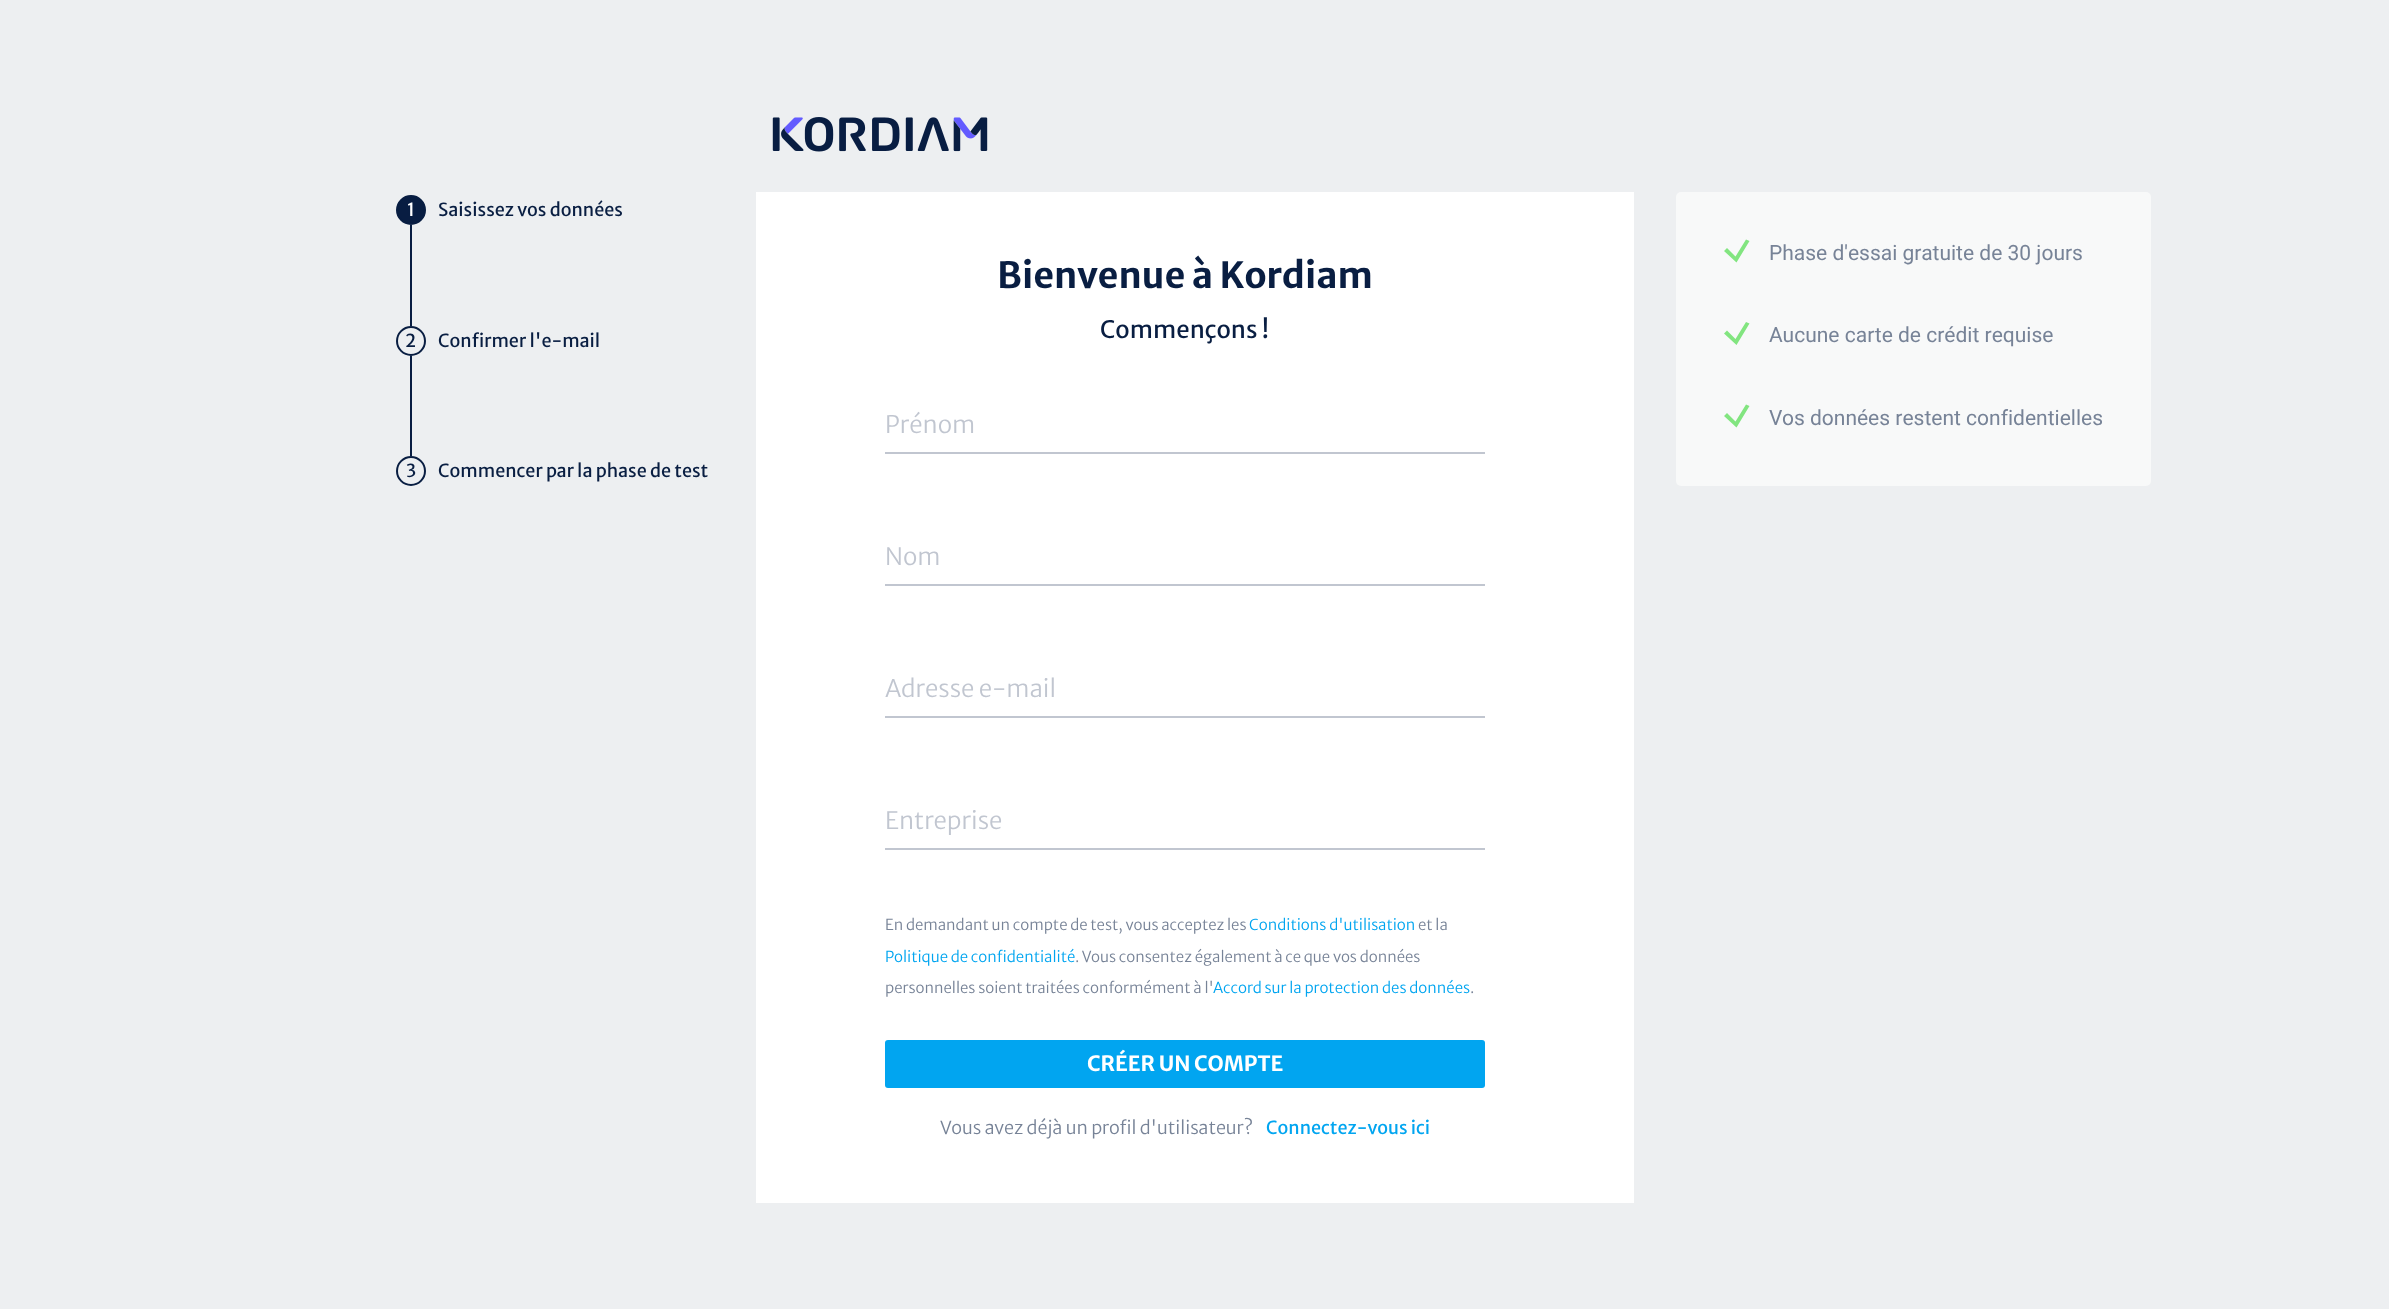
<svg xmlns="http://www.w3.org/2000/svg" width="2389" height="1309">
	<rect width="100%" height="100%" fill="#EDEFF1" />
	<image x="772" y="117" width="216" height="35" href="assets/img1.png" />
	<circle cx="411" cy="210" r="14" fill="#081D42" stroke="#081D42" stroke-width="2" />
	<text x="407" y="216" font-family="Merriweather Sans" font-size="18" fill="#FFFFFF">1</text>
	<text x="438" y="216" font-family="Merriweather Sans" font-size="18" fill="#091E42">Saisissez vos données</text>
	<rect x="410" y="225" width="2" height="101" fill="#081D42" />
	<circle cx="411" cy="341" r="14" fill="none" stroke="#091E42" stroke-width="2" />
	<g font-family="Merriweather Sans" font-size="18" fill="#091E42">
		<text x="405" y="347">2</text>
		<text x="438" y="347">Confirmer l'e-mail</text>
	</g>
	<rect x="410" y="356" width="2" height="100" fill="#081D42" />
	<circle cx="411" cy="471" r="14" fill="none" stroke="#091E42" stroke-width="2" />
	<g font-family="Merriweather Sans" font-size="18" fill="#091E42">
		<text x="406" y="477">3</text>
		<text x="438" y="477">Commencer par la phase de test</text>
	</g>
	<rect x="756" y="192" width="878" height="1011" fill="#FFFFFF" />
	<text x="997" y="288" font-family="Merriweather Sans" font-size="36" font-weight="700" fill="#091E42">Bienvenue à Kordiam</text>
	<text x="1100" y="338" font-family="Merriweather Sans" font-size="24" fill="#091E42">Commençons !</text>
	<text x="885" y="433" font-family="Merriweather Sans" font-size="24" font-weight="300" fill="#C1C6D0">Prénom</text>
	<rect x="885" y="452" width="600" height="2" fill="#C1C6D0" />
	<text x="885" y="565" font-family="Merriweather Sans" font-size="24" font-weight="300" fill="#C1C6D0">Nom</text>
	<rect x="885" y="584" width="600" height="2" fill="#C1C6D0" />
	<text x="885" y="697" font-family="Merriweather Sans" font-size="24" font-weight="300" fill="#C1C6D0">Adresse e-mail</text>
	<rect x="885" y="716" width="600" height="2" fill="#C1C6D0" />
	<text x="885" y="829" font-family="Merriweather Sans" font-size="24" font-weight="300" fill="#C1C6D0">Entreprise</text>
	<rect x="885" y="848" width="600" height="2" fill="#C1C6D0" />
	<text x="885" y="930" font-family="Merriweather Sans" font-size="15" font-weight="300" fill="#778397">En demandant un compte de test, vous acceptez les</text>
	<text x="1249" y="930" font-family="Merriweather Sans" font-size="15" font-weight="300" fill="#01A5F0">Conditions d'utilisation</text>
	<text x="1418" y="930" font-family="Merriweather Sans" font-size="15" font-weight="300" fill="#778397">et la</text>
	<text x="885" y="962" font-family="Merriweather Sans" font-size="15" font-weight="300" fill="#01A5F0">Politique de confidentialité</text>
	<g font-family="Merriweather Sans" font-size="15" font-weight="300" fill="#778397">
		<text x="1075" y="962">. Vous consentez également à ce que vos données</text>
		<text x="885" y="993">personnelles soient traitées conformément à l'</text>
	</g>
	<text x="1213" y="993" font-family="Merriweather Sans" font-size="15" font-weight="300" fill="#01A5F0">Accord sur la protection des données</text>
	<text x="1470" y="993" font-family="Merriweather Sans" font-size="15" font-weight="300" fill="#778397">.</text>
	<rect x="885" y="1040" width="600" height="48" rx="3" fill="#01A5F0" />
	<text x="1087" y="1071" font-family="Merriweather Sans" font-size="21" font-weight="700" fill="#FFFFFF">CRÉER UN COMPTE</text>
	<text x="940" y="1134" font-family="Merriweather Sans" font-size="18" font-weight="300" fill="#778397">Vous avez déjà un profil d'utilisateur?</text>
	<text x="1266" y="1134" font-family="Merriweather Sans" font-size="18" fill="#01A5F0">Connectez-vous ici</text>
	<rect x="1676" y="192" width="475" height="294" rx="5" fill="#F8F9F9" />
	<path d="M1749.5 241L1746 239.5L1735.5 256.5L1727 248L1724 251L1736.5 262.5Z" fill="#82E580" />
	<path d="M1749.5 323.5L1746 322L1735.5 339L1727 330.5L1724 333.5L1736.5 345Z" fill="#82E580" />
	<path d="M1749.5 406L1746 404.5L1735.5 421.5L1727 413L1724 416L1736.5 427.5Z" fill="#82E580" />
	<g font-family="Heebo" font-size="21" fill="#778397">
		<text x="1769" y="260">Phase d'essai gratuite de 30 jours</text>
		<text x="1769" y="342">Aucune carte de crédit requise</text>
		<text x="1769" y="425">Vos données restent confidentielles</text>
	</g>
</svg>
